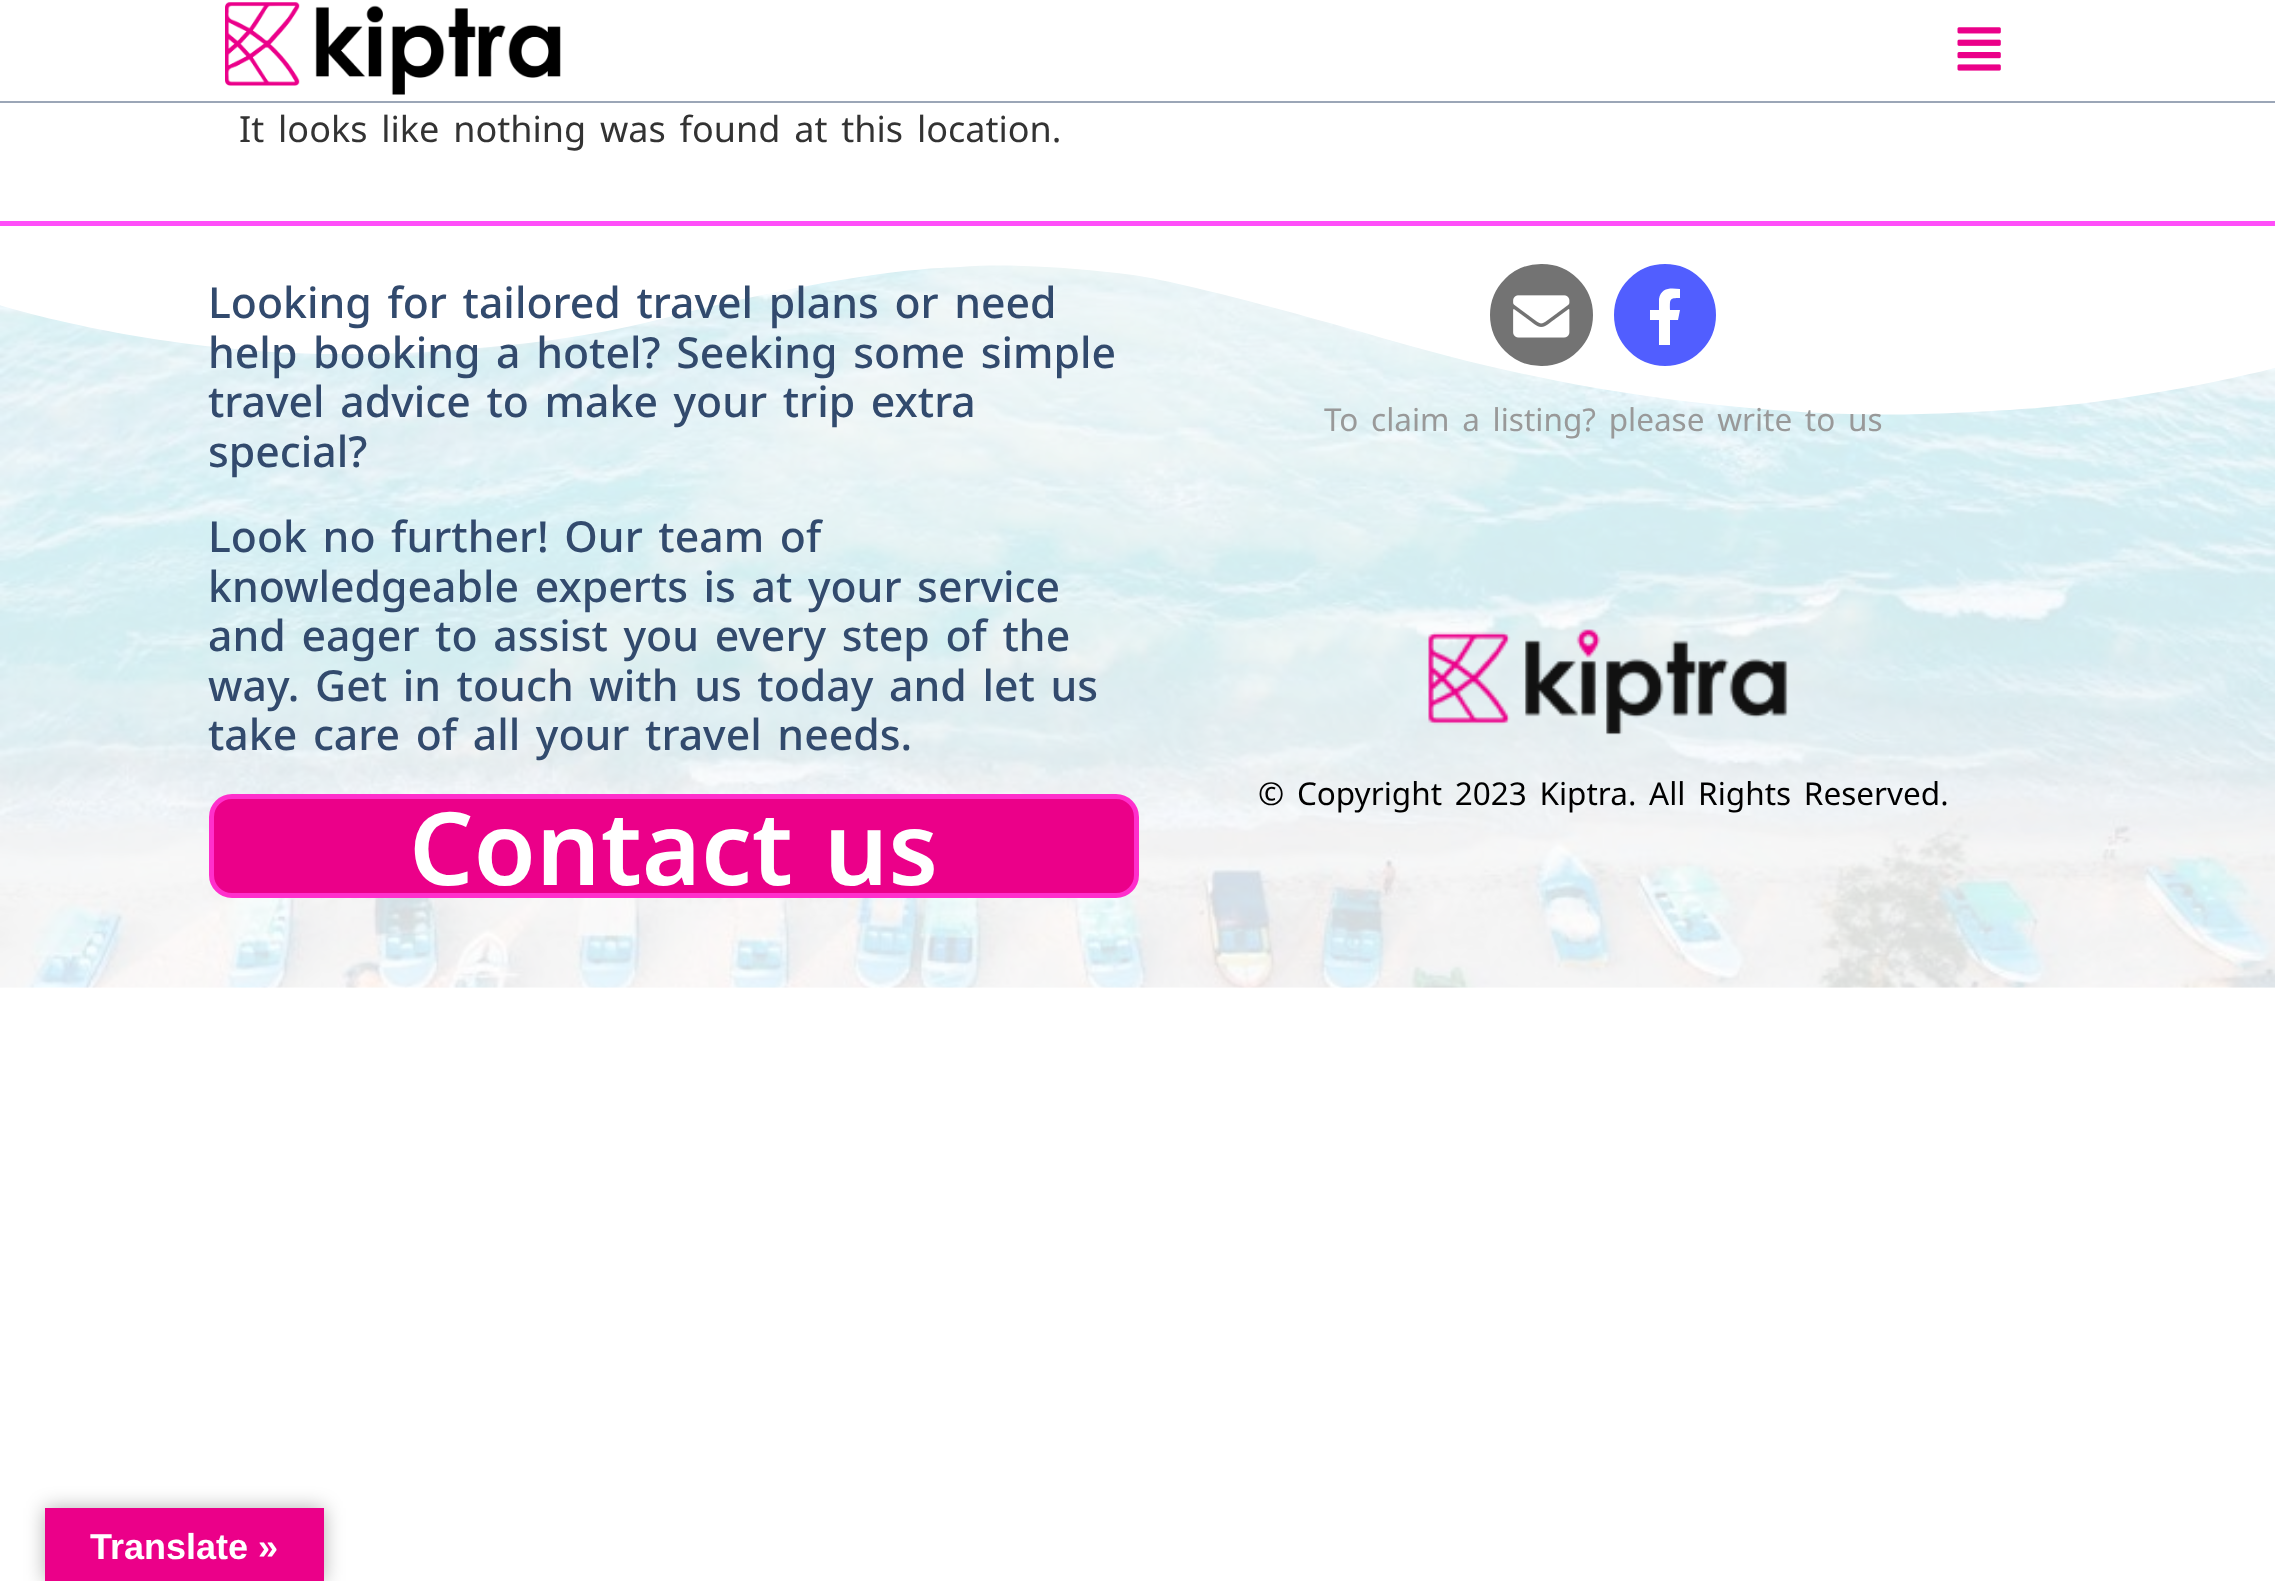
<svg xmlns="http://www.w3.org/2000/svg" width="2275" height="1581">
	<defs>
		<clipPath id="clip1"><rect x="0" y="257" width="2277" height="159" /></clipPath>
	</defs>
	<rect width="100%" height="100%" fill="#FFFFFF" />
	<rect x="0" y="101" width="2275" height="2" fill="#9BA6B7" />
	<image x="225" y="2" width="336" height="93" href="assets/img1.png" />
	<image x="1957" y="27" width="44" height="44" href="assets/img2.png" />
	<text x="239" y="142" word-spacing="4.5" font-family="Noto Sans" font-size="36" fill="#333333">It looks like nothing was found at this location.</text>
	<rect x="0" y="221" width="2275" height="5" fill="#FF4EF9" />
	<image x="0" y="265" width="2275" height="723" href="assets/img3.png" />
	<g clip-path="url(#clip1)">
		<path d="M960 267C1012 263 1078 268 1133 275C1186 283 1294 313 1362 332C1535 384 1667 403 1801 412C1855 415 1912 417 2037 408C2161 398 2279 367 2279 367V256H-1V305C-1 305 163 357 360 354C449 353 571 343 665 318C714 305 784 289 847 279C909 269 937 268 960 267Z" fill="#FFFFFF" />
	</g>
	<g font-family="Noto Sans" font-size="42.75" font-weight="500" fill="#324A6D">
		<text x="208" y="318" word-spacing="4.5">Looking for tailored travel plans or need</text>
		<text x="208" y="368" word-spacing="4.5">help booking a hotel? Seeking some simple</text>
		<text x="208" y="417" word-spacing="4.5">travel advice to make your trip extra</text>
		<text x="208" y="467">special?</text>
		<text x="208" y="552" word-spacing="4.5">Look no further! Our team of</text>
		<text x="208" y="602" word-spacing="4.5">knowledgeable experts is at your service</text>
		<text x="208" y="651" word-spacing="4.5">and eager to assist you every step of the</text>
		<text x="208" y="701" word-spacing="4.5">way. Get in touch with us today and let us</text>
		<text x="208" y="750" word-spacing="4.5">take care of all your travel needs.</text>
	</g>
	<rect x="211.5" y="796.5" width="925" height="99" rx="20.5" fill="#EB0089" stroke="#FF2FCC" stroke-width="5" />
	<text x="409" y="885" word-spacing="4.5" font-family="Noto Sans" font-size="101.25" font-weight="600" fill="#FFFFFF">Contact us</text>
	<rect x="1487.5" y="261.5" width="108" height="107" rx="53.5" fill="#737373" stroke="#FFFFFF" stroke-width="5" />
	<image x="1513" y="295" width="57" height="43" href="assets/img4.png" />
	<circle cx="1665" cy="315" r="53.5" fill="#515EFF" stroke="#FFFFFF" stroke-width="5" />
	<path d="M1678 320H1670V345H1659V320H1650V310H1659V299C1661 287 1671 288 1680 289V298C1669 298 1670 299 1670 310H1680Z" fill="#FFFFFF" />
	<text x="1324" y="431" word-spacing="4.5" font-family="Noto Sans" font-size="31.5" fill="#999999">To claim a listing? please write to us</text>
	<image x="1428" y="629" width="360" height="106" href="assets/img5.png" />
	<text x="1258" y="805" word-spacing="4.5" font-family="Noto Sans" font-size="31.5" fill="#000000">© Copyright 2023 Kiptra. All Rights Reserved.</text>
	<rect x="45" y="1508" width="279" height="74" fill="#000000" fill-opacity="0.3" filter="blur(10px)" />
	<rect x="45" y="1508" width="279" height="73" fill="#EB0089" />
	<text x="90" y="1559" font-family="Liberation Sans" font-size="36" font-weight="700" fill="#FFFFFF">Translate »</text>
</svg>
